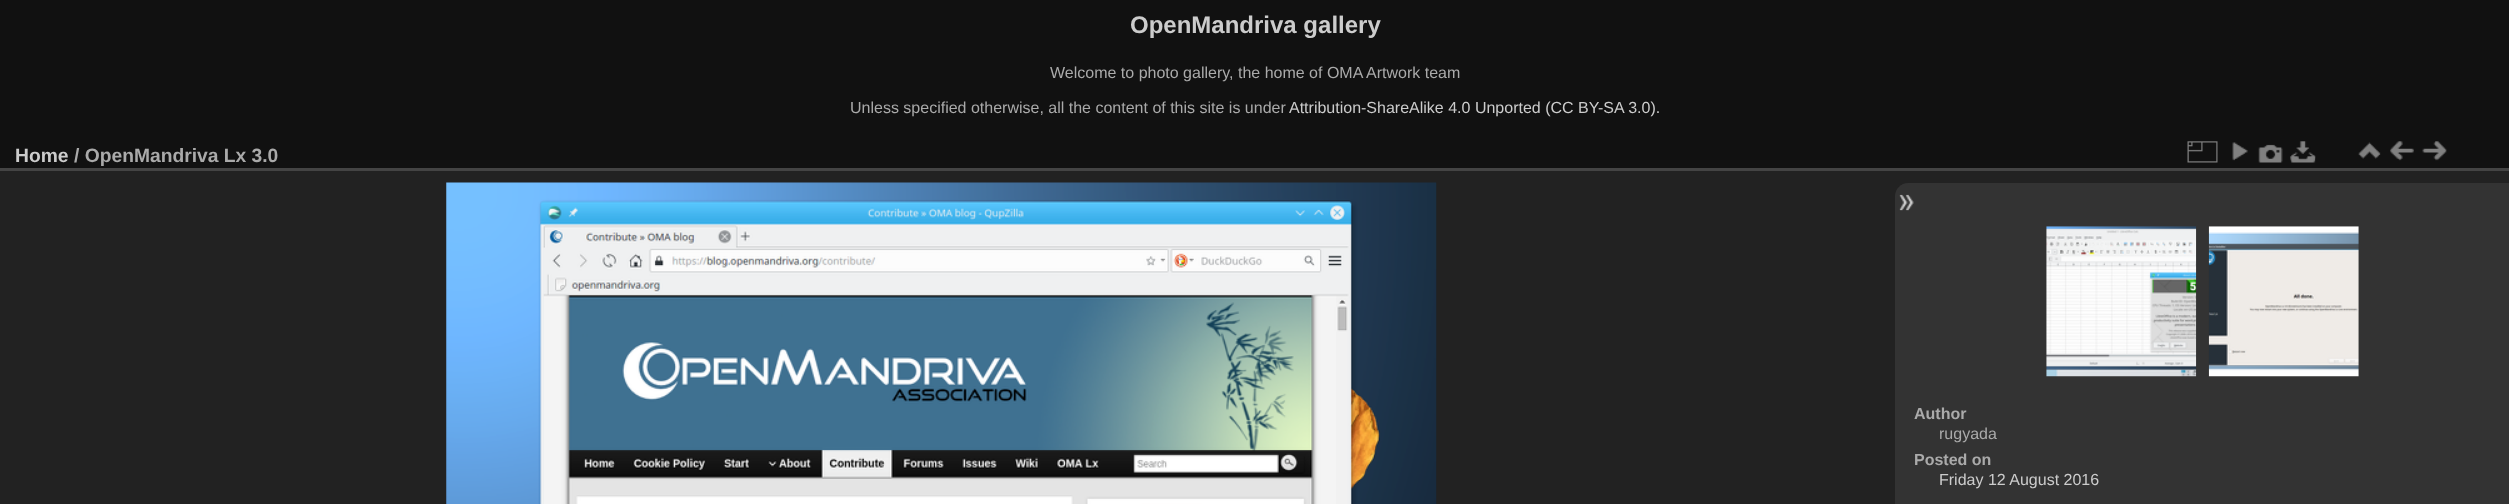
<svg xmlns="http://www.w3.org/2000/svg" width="2509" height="504">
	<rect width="100%" height="100%" fill="#111111" />
	<text x="1130" y="33" font-family="Liberation Sans" font-size="24" font-weight="700" fill="#CCCCCC">OpenMandriva gallery</text>
	<g font-family="Liberation Sans" font-size="16" fill="#AAAAAA">
		<text x="1050" y="78">Welcome to photo gallery, the home of OMA Artwork team</text>
		<text x="850" y="113">Unless specified otherwise, all the content of this site is under</text>
	</g>
	<text x="1289" y="113" font-family="Liberation Sans" font-size="16" fill="#CCCCCC">Attribution-ShareAlike 4.0 Unported (CC BY-SA 3.0).</text>
	<rect x="0" y="171" width="2509" height="333" fill="#222222" />
	<rect x="0" y="168" width="2509" height="3" fill="#444444" />
	<text x="15" y="162" font-family="Liberation Sans" font-size="19.25" font-weight="700" fill="#CCCCCC">Home</text>
	<text x="74" y="162" font-family="Liberation Sans" font-size="19.25" font-weight="700" fill="#AAAAAA">/ OpenMandriva Lx 3.0</text>
	<image x="2187" y="141" width="31" height="22" href="assets/img1.png" />
	<image x="2232" y="142" width="16" height="19" href="assets/img2.png" />
	<image x="2258" y="144" width="25" height="19" href="assets/img3.png" />
	<image x="2290" y="141" width="26" height="22" href="assets/img4.png" />
	<image x="2358" y="142" width="23" height="17" href="assets/img5.png" />
	<image x="2390" y="141" width="24" height="20" href="assets/img6.png" />
	<image x="2422" y="141" width="25" height="20" href="assets/img7.png" />
	<image x="446" y="182" width="991" height="322" href="assets/img8.png" />
	<path d="M1908 183H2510V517H1908C1901 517 1895 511 1895 504V196C1895 189 1901 183 1908 183Z" fill="#333333" />
	<image x="1899" y="194" width="15" height="17" href="assets/img9.png" />
	<image x="2046" y="226" width="151" height="151" href="assets/img10.png" />
	<image x="2208" y="226" width="151" height="151" href="assets/img11.png" />
	<text x="1914" y="419" font-family="Liberation Sans" font-size="16" font-weight="700" fill="#AAAAAA">Author</text>
	<text x="1939" y="439" font-family="Liberation Sans" font-size="16" fill="#AAAAAA">rugyada</text>
	<text x="1914" y="465" font-family="Liberation Sans" font-size="16" font-weight="700" fill="#AAAAAA">Posted on</text>
	<text x="1939" y="485" font-family="Liberation Sans" font-size="16" fill="#CCCCCC">Friday 12 August 2016</text>
</svg>
